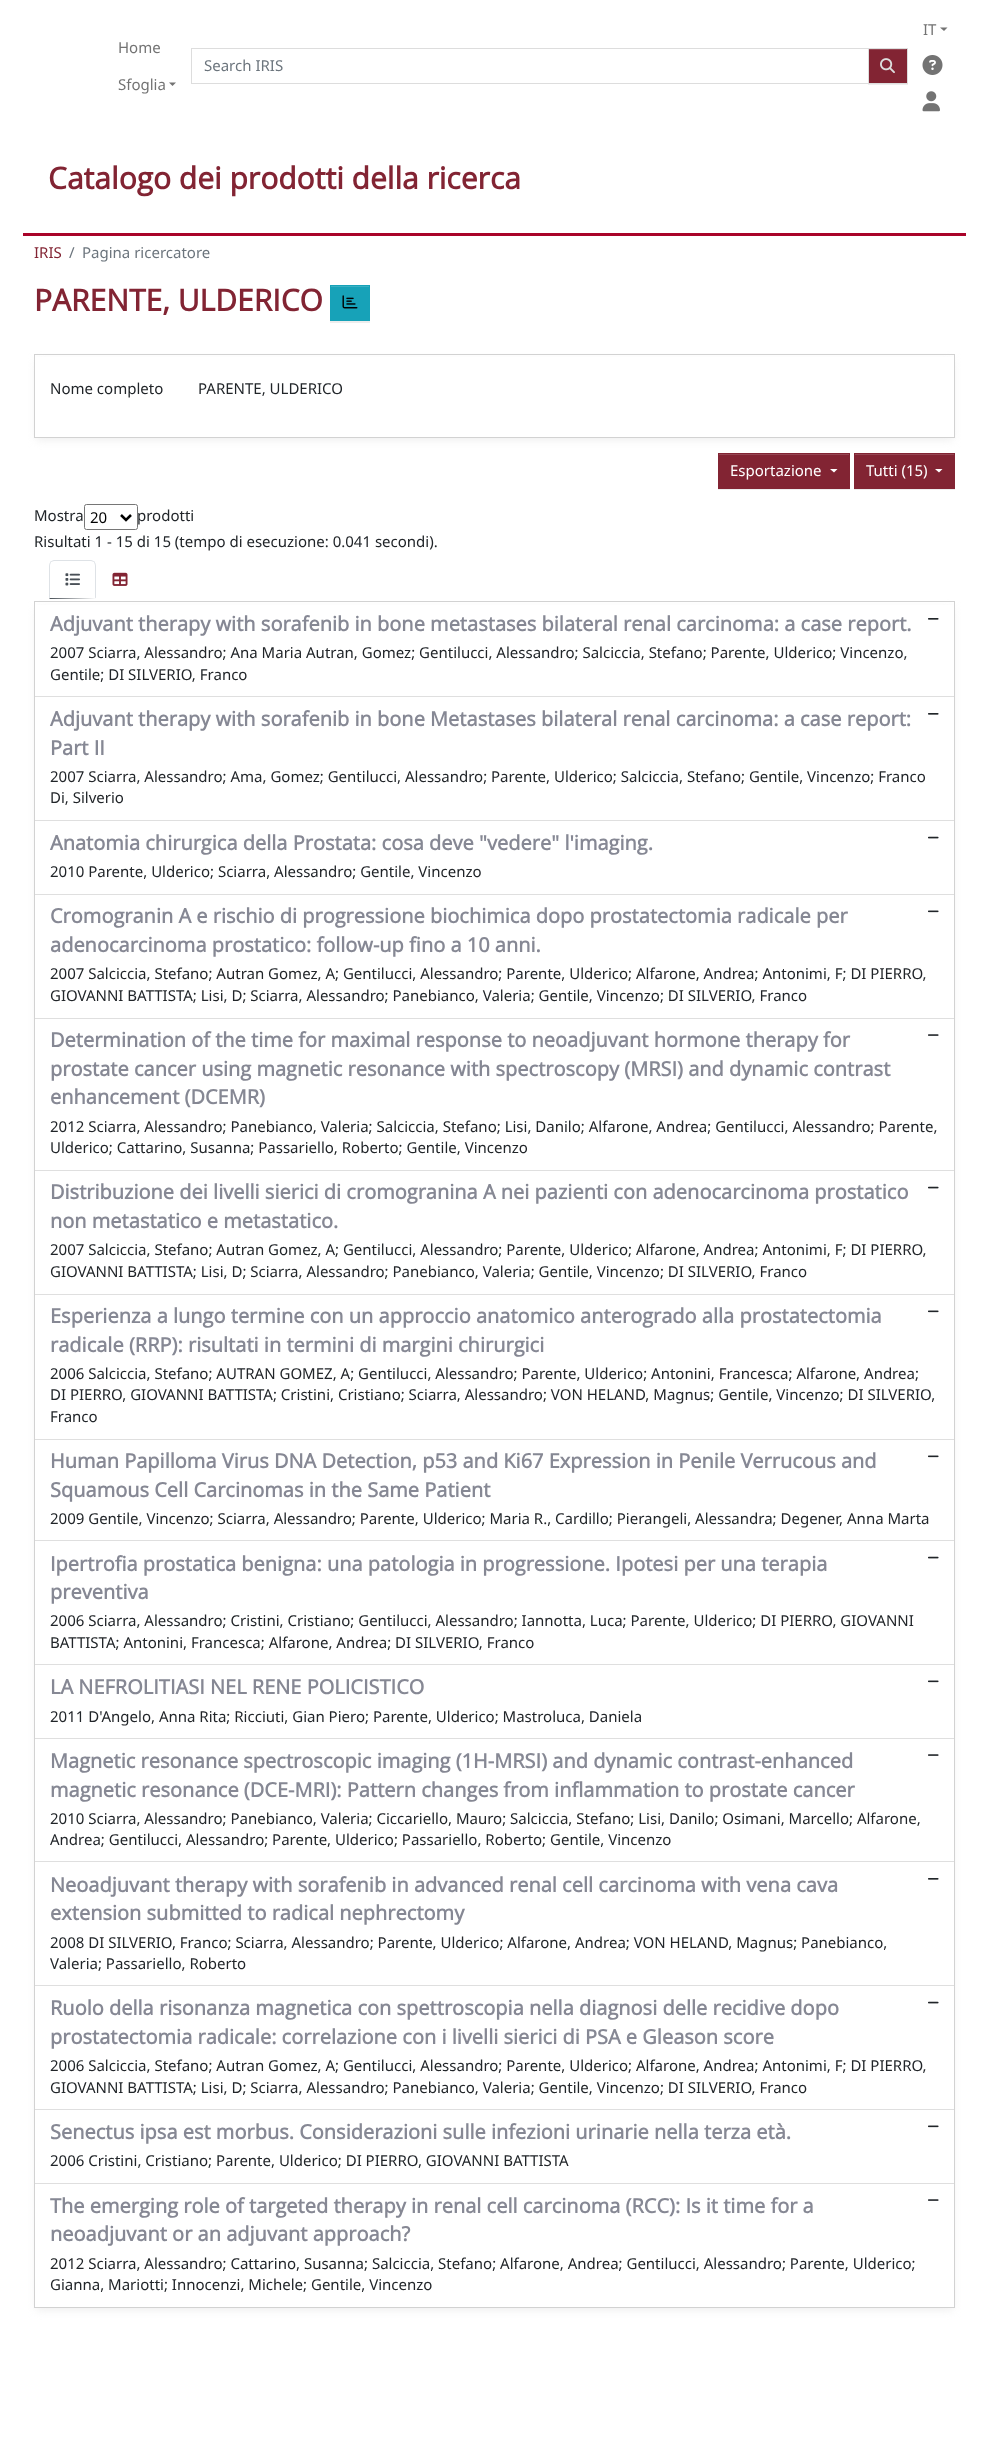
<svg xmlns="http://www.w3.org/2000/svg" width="988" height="2458">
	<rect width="100%" height="100%" fill="#FFFFFF" />
	<text x="923" y="35" font-family="Noto Sans" font-size="15" fill="#737373">IT</text>
	<path d="M940 27.5H947.5L944 31Z" fill="#737373" />
	<image x="922" y="55" width="21" height="20" href="assets/img1.png" />
	<image x="922" y="91" width="18" height="21" href="assets/img2.png" />
	<g font-family="Noto Sans" font-size="15" fill="#737373">
		<text x="118" y="53">Home</text>
		<text x="118" y="90">Sfoglia</text>
	</g>
	<path d="M169 82.5H176L172.5 86Z" fill="#737373" />
	<rect x="191.5" y="48.5" width="677" height="35" fill="none" stroke="#DDDDDD" />
	<text x="204" y="71" font-family="Noto Sans" font-size="15" fill="#6C757D">Search IRIS</text>
	<rect x="868" y="49" width="40" height="36" fill="#000000" fill-opacity="0.07" filter="blur(0.5px)" />
	<rect x="869" y="49" width="38" height="34" fill="#822433" />
	<rect x="869" y="49" width="37" height="1" fill="#954552" />
	<rect x="868.5" y="48.5" width="39" height="35" fill="none" stroke="#DDDDDD" />
	<image x="880" y="58" width="15" height="16" href="assets/img3.png" />
	<rect x="23" y="233" width="943" height="3" fill="#A90329" />
	<text x="48" y="189" font-family="Open Sans" font-size="30" font-weight="700" fill="#822433">Catalogo dei prodotti della ricerca</text>
	<text x="34" y="258" font-family="Noto Sans" font-size="15" fill="#822433">IRIS</text>
	<g font-family="Noto Sans" font-size="15" fill="#6C757D">
		<text x="69" y="258">/</text>
		<text x="82" y="258">Pagina ricercatore</text>
	</g>
	<text x="34" y="311" font-family="Open Sans" font-size="30" font-weight="700" fill="#822433">PARENTE, ULDERICO</text>
	<rect x="330" y="286" width="40" height="37" fill="#000000" fill-opacity="0.07" filter="blur(0.5px)" />
	<rect x="330" y="285" width="40" height="36" fill="#17A2B8" />
	<rect x="331" y="286" width="38" height="1" fill="#3AB0C3" />
	<image x="342" y="295" width="16" height="14" href="assets/img4.png" />
	<rect x="36" y="361" width="917" height="79" fill="#EEEEEE" filter="blur(4px)" />
	<rect x="35" y="357" width="919" height="80" fill="#FFFFFF" />
	<rect x="34.5" y="354.5" width="920" height="83" fill="none" stroke="#D2D2D2" />
	<g font-family="Noto Sans" font-size="15" fill="#212529">
		<text x="50" y="394">Nome completo</text>
		<text x="198" y="394">PARENTE, ULDERICO</text>
	</g>
	<rect x="718" y="454" width="132" height="36" fill="#000000" fill-opacity="0.07" filter="blur(0.5px)" />
	<rect x="718" y="453" width="132" height="36" fill="#822433" />
	<rect x="719" y="454" width="130" height="1" fill="#954552" />
	<text x="730" y="476" font-family="Noto Sans" font-size="15" fill="#FFFFFF">Esportazione</text>
	<path d="M830 469H837.5L834 472.5Z" fill="#FFFFFF" />
	<rect x="854" y="454" width="101" height="36" fill="#000000" fill-opacity="0.07" filter="blur(0.5px)" />
	<rect x="854" y="453" width="101" height="36" fill="#822433" />
	<rect x="855" y="454" width="99" height="1" fill="#954552" />
	<text x="866" y="476" font-family="Noto Sans" font-size="15" fill="#FFFFFF">Tutti (15)</text>
	<path d="M935 469H942.5L939 472.5Z" fill="#FFFFFF" />
	<text x="34" y="521" font-family="Noto Sans" font-size="15" fill="#212529">Mostra</text>
	<rect x="84.5" y="504.5" width="53" height="25" rx="2" fill="none" stroke="#767676" />
	<path d="M121 515L126 520L131 515" fill="none" stroke="#000000" stroke-width="2.5" />
	<text x="90" y="523" font-family="Noto Sans" font-size="15" fill="#000000">20</text>
	<g font-family="Noto Sans" font-size="15" fill="#212529">
		<text x="137" y="521">prodotti</text>
		<text x="34" y="547">Risultati 1 - 15 di 15 (tempo di esecuzione: 0.041 secondi).</text>
	</g>
	<path d="M54 560C53 560 51 561 50 562H51C52 562 53 561 54 561H91C92 561 93 562 94 562H95C94 561 92 560 91 560Z" fill="#DEE2E6" />
	<path d="M94.5 561.5C95.5 563 96 564.5 96 566V598.5L95 597.5V566C95 564.5 94.5 563.5 94 562.5Z" fill="#DEE2E6" />
	<path d="M49 599L50 598H95H96Z" fill="#495057" />
	<path d="M50.5 561.5C49.5 563 49 564.5 49 566V598.5L50 597.5V566C50 564.5 50.5 563.5 51 562.5Z" fill="#DEE2E6" />
	<image x="65" y="573" width="15" height="13" href="assets/img5.png" />
	<image x="112" y="572" width="16" height="14" href="assets/img6.png" />
	<rect x="36" y="609" width="917" height="1701" fill="#EEEEEE" filter="blur(4px)" />
	<rect x="35" y="605" width="919" height="1702" fill="#FFFFFF" />
	<rect x="34.5" y="601.5" width="920" height="1706" fill="none" stroke="#D2D2D2" />
	<rect x="35" y="696" width="919" height="1" fill="#DFDFDF" />
	<text x="50" y="631" font-family="Open Sans" font-size="20" font-weight="700" fill="#868894">Adjuvant therapy with sorafenib in bone metastases bilateral renal carcinoma: a case report.</text>
	<image x="928" y="618" width="11" height="2" href="assets/img7.png" />
	<g font-family="Noto Sans" font-size="15" fill="#212529">
		<text x="50" y="658">2007 Sciarra, Alessandro; Ana Maria Autran, Gomez; Gentilucci, Alessandro; Salciccia, Stefano; Parente, Ulderico; Vincenzo,</text>
		<text x="50" y="680">Gentile; DI SILVERIO, Franco</text>
	</g>
	<rect x="35" y="820" width="919" height="1" fill="#DFDFDF" />
	<g font-family="Open Sans" font-size="20" font-weight="700" fill="#868894">
		<text x="50" y="726">Adjuvant therapy with sorafenib in bone Metastases bilateral renal carcinoma: a case report:</text>
		<text x="50" y="755">Part II</text>
	</g>
	<image x="928" y="713" width="11" height="2" href="assets/img7.png" />
	<g font-family="Noto Sans" font-size="15" fill="#212529">
		<text x="50" y="782">2007 Sciarra, Alessandro; Ama, Gomez; Gentilucci, Alessandro; Parente, Ulderico; Salciccia, Stefano; Gentile, Vincenzo; Franco</text>
		<text x="50" y="803">Di, Silverio</text>
	</g>
	<rect x="35" y="894" width="919" height="1" fill="#DFDFDF" />
	<text x="50" y="850" font-family="Open Sans" font-size="20" font-weight="700" fill="#868894">Anatomia chirurgica della Prostata: cosa deve "vedere" l'imaging.</text>
	<image x="928" y="836" width="11" height="3" href="assets/img8.png" />
	<text x="50" y="877" font-family="Noto Sans" font-size="15" fill="#212529">2010 Parente, Ulderico; Sciarra, Alessandro; Gentile, Vincenzo</text>
	<rect x="35" y="1018" width="919" height="1" fill="#DFDFDF" />
	<g font-family="Open Sans" font-size="20" font-weight="700" fill="#868894">
		<text x="50" y="923">Cromogranin A e rischio di progressione biochimica dopo prostatectomia radicale per</text>
		<text x="50" y="952">adenocarcinoma prostatico: follow-up fino a 10 anni.</text>
	</g>
	<image x="928" y="910" width="11" height="3" href="assets/img9.png" />
	<g font-family="Noto Sans" font-size="15" fill="#212529">
		<text x="50" y="979">2007 Salciccia, Stefano; Autran Gomez, A; Gentilucci, Alessandro; Parente, Ulderico; Alfarone, Andrea; Antonimi, F; DI PIERRO,</text>
		<text x="50" y="1001">GIOVANNI BATTISTA; Lisi, D; Sciarra, Alessandro; Panebianco, Valeria; Gentile, Vincenzo; DI SILVERIO, Franco</text>
	</g>
	<rect x="35" y="1170" width="919" height="1" fill="#DFDFDF" />
	<g font-family="Open Sans" font-size="20" font-weight="700" fill="#868894">
		<text x="50" y="1047">Determination of the time for maximal response to neoadjuvant hormone therapy for</text>
		<text x="50" y="1076">prostate cancer using magnetic resonance with spectroscopy (MRSI) and dynamic contrast</text>
		<text x="50" y="1104">enhancement (DCEMR)</text>
	</g>
	<image x="928" y="1034" width="11" height="2" href="assets/img10.png" />
	<g font-family="Noto Sans" font-size="15" fill="#212529">
		<text x="50" y="1132">2012 Sciarra, Alessandro; Panebianco, Valeria; Salciccia, Stefano; Lisi, Danilo; Alfarone, Andrea; Gentilucci, Alessandro; Parente,</text>
		<text x="50" y="1153">Ulderico; Cattarino, Susanna; Passariello, Roberto; Gentile, Vincenzo</text>
	</g>
	<rect x="35" y="1294" width="919" height="1" fill="#DFDFDF" />
	<g font-family="Open Sans" font-size="20" font-weight="700" fill="#868894">
		<text x="50" y="1199">Distribuzione dei livelli sierici di cromogranina A nei pazienti con adenocarcinoma prostatico</text>
		<text x="50" y="1228">non metastatico e metastatico.</text>
	</g>
	<image x="928" y="1186" width="11" height="3" href="assets/img8.png" />
	<g font-family="Noto Sans" font-size="15" fill="#212529">
		<text x="50" y="1255">2007 Salciccia, Stefano; Autran Gomez, A; Gentilucci, Alessandro; Parente, Ulderico; Alfarone, Andrea; Antonimi, F; DI PIERRO,</text>
		<text x="50" y="1277">GIOVANNI BATTISTA; Lisi, D; Sciarra, Alessandro; Panebianco, Valeria; Gentile, Vincenzo; DI SILVERIO, Franco</text>
	</g>
	<rect x="35" y="1439" width="919" height="1" fill="#DFDFDF" />
	<g font-family="Open Sans" font-size="20" font-weight="700" fill="#868894">
		<text x="50" y="1323">Esperienza a lungo termine con un approccio anatomico anterogrado alla prostatectomia</text>
		<text x="50" y="1352">radicale (RRP): risultati in termini di margini chirurgici</text>
	</g>
	<image x="928" y="1310" width="11" height="3" href="assets/img9.png" />
	<g font-family="Noto Sans" font-size="15" fill="#212529">
		<text x="50" y="1379">2006 Salciccia, Stefano; AUTRAN GOMEZ, A; Gentilucci, Alessandro; Parente, Ulderico; Antonini, Francesca; Alfarone, Andrea;</text>
		<text x="50" y="1400">DI PIERRO, GIOVANNI BATTISTA; Cristini, Cristiano; Sciarra, Alessandro; VON HELAND, Magnus; Gentile, Vincenzo; DI SILVERIO,</text>
		<text x="50" y="1422">Franco</text>
	</g>
	<rect x="35" y="1540" width="919" height="1" fill="#DFDFDF" />
	<g font-family="Open Sans" font-size="20" font-weight="700" fill="#868894">
		<text x="50" y="1468">Human Papilloma Virus DNA Detection, p53 and Ki67 Expression in Penile Verrucous and</text>
		<text x="50" y="1497">Squamous Cell Carcinomas in the Same Patient</text>
	</g>
	<image x="928" y="1455" width="11" height="3" href="assets/img9.png" />
	<text x="50" y="1524" font-family="Noto Sans" font-size="15" fill="#212529">2009 Gentile, Vincenzo; Sciarra, Alessandro; Parente, Ulderico; Maria R., Cardillo; Pierangeli, Alessandra; Degener, Anna Marta</text>
	<rect x="35" y="1664" width="919" height="1" fill="#DFDFDF" />
	<g font-family="Open Sans" font-size="20" font-weight="700" fill="#868894">
		<text x="50" y="1571">Ipertrofia prostatica benigna: una patologia in progressione. Ipotesi per una terapia</text>
		<text x="50" y="1599">preventiva</text>
	</g>
	<image x="928" y="1556" width="11" height="3" href="assets/img8.png" />
	<g font-family="Noto Sans" font-size="15" fill="#212529">
		<text x="50" y="1626">2006 Sciarra, Alessandro; Cristini, Cristiano; Gentilucci, Alessandro; Iannotta, Luca; Parente, Ulderico; DI PIERRO, GIOVANNI</text>
		<text x="50" y="1648">BATTISTA; Antonini, Francesca; Alfarone, Andrea; DI SILVERIO, Franco</text>
	</g>
	<rect x="35" y="1738" width="919" height="1" fill="#DFDFDF" />
	<text x="50" y="1694" font-family="Open Sans" font-size="20" font-weight="700" fill="#868894">LA NEFROLITIASI NEL RENE POLICISTICO</text>
	<image x="928" y="1680" width="11" height="3" href="assets/img9.png" />
	<text x="50" y="1722" font-family="Noto Sans" font-size="15" fill="#212529">2011 D'Angelo, Anna Rita; Ricciuti, Gian Piero; Parente, Ulderico; Mastroluca, Daniela</text>
	<rect x="35" y="1861" width="919" height="1" fill="#DFDFDF" />
	<g font-family="Open Sans" font-size="20" font-weight="700" fill="#868894">
		<text x="50" y="1768">Magnetic resonance spectroscopic imaging (1H-MRSI) and dynamic contrast-enhanced</text>
		<text x="50" y="1797">magnetic resonance (DCE-MRI): Pattern changes from inflammation to prostate cancer</text>
	</g>
	<image x="928" y="1754" width="11" height="2" href="assets/img10.png" />
	<g font-family="Noto Sans" font-size="15" fill="#212529">
		<text x="50" y="1824">2010 Sciarra, Alessandro; Panebianco, Valeria; Ciccariello, Mauro; Salciccia, Stefano; Lisi, Danilo; Osimani, Marcello; Alfarone,</text>
		<text x="50" y="1845">Andrea; Gentilucci, Alessandro; Parente, Ulderico; Passariello, Roberto; Gentile, Vincenzo</text>
	</g>
	<rect x="35" y="1985" width="919" height="1" fill="#DFDFDF" />
	<g font-family="Open Sans" font-size="20" font-weight="700" fill="#868894">
		<text x="50" y="1892">Neoadjuvant therapy with sorafenib in advanced renal cell carcinoma with vena cava</text>
		<text x="50" y="1920">extension submitted to radical nephrectomy</text>
	</g>
	<image x="928" y="1878" width="11" height="2" href="assets/img7.png" />
	<g font-family="Noto Sans" font-size="15" fill="#212529">
		<text x="50" y="1948">2008 DI SILVERIO, Franco; Sciarra, Alessandro; Parente, Ulderico; Alfarone, Andrea; VON HELAND, Magnus; Panebianco,</text>
		<text x="50" y="1969">Valeria; Passariello, Roberto</text>
	</g>
	<rect x="35" y="2109" width="919" height="1" fill="#DFDFDF" />
	<g font-family="Open Sans" font-size="20" font-weight="700" fill="#868894">
		<text x="50" y="2015">Ruolo della risonanza magnetica con spettroscopia nella diagnosi delle recidive dopo</text>
		<text x="50" y="2044">prostatectomia radicale: correlazione con i livelli sierici di PSA e Gleason score</text>
	</g>
	<image x="928" y="2001" width="11" height="3" href="assets/img8.png" />
	<g font-family="Noto Sans" font-size="15" fill="#212529">
		<text x="50" y="2071">2006 Salciccia, Stefano; Autran Gomez, A; Gentilucci, Alessandro; Parente, Ulderico; Alfarone, Andrea; Antonimi, F; DI PIERRO,</text>
		<text x="50" y="2093">GIOVANNI BATTISTA; Lisi, D; Sciarra, Alessandro; Panebianco, Valeria; Gentile, Vincenzo; DI SILVERIO, Franco</text>
	</g>
	<rect x="35" y="2183" width="919" height="1" fill="#DFDFDF" />
	<text x="50" y="2139" font-family="Open Sans" font-size="20" font-weight="700" fill="#868894">Senectus ipsa est morbus. Considerazioni sulle infezioni urinarie nella terza età.</text>
	<image x="928" y="2125" width="11" height="3" href="assets/img9.png" />
	<text x="50" y="2166" font-family="Noto Sans" font-size="15" fill="#212529">2006 Cristini, Cristiano; Parente, Ulderico; DI PIERRO, GIOVANNI BATTISTA</text>
	<g font-family="Open Sans" font-size="20" font-weight="700" fill="#868894">
		<text x="50" y="2213">The emerging role of targeted therapy in renal cell carcinoma (RCC): Is it time for a</text>
		<text x="50" y="2241">neoadjuvant or an adjuvant approach?</text>
	</g>
	<image x="928" y="2199" width="11" height="2" href="assets/img10.png" />
	<g font-family="Noto Sans" font-size="15" fill="#212529">
		<text x="50" y="2269">2012 Sciarra, Alessandro; Cattarino, Susanna; Salciccia, Stefano; Alfarone, Andrea; Gentilucci, Alessandro; Parente, Ulderico;</text>
		<text x="50" y="2290">Gianna, Mariotti; Innocenzi, Michele; Gentile, Vincenzo</text>
	</g>
</svg>
